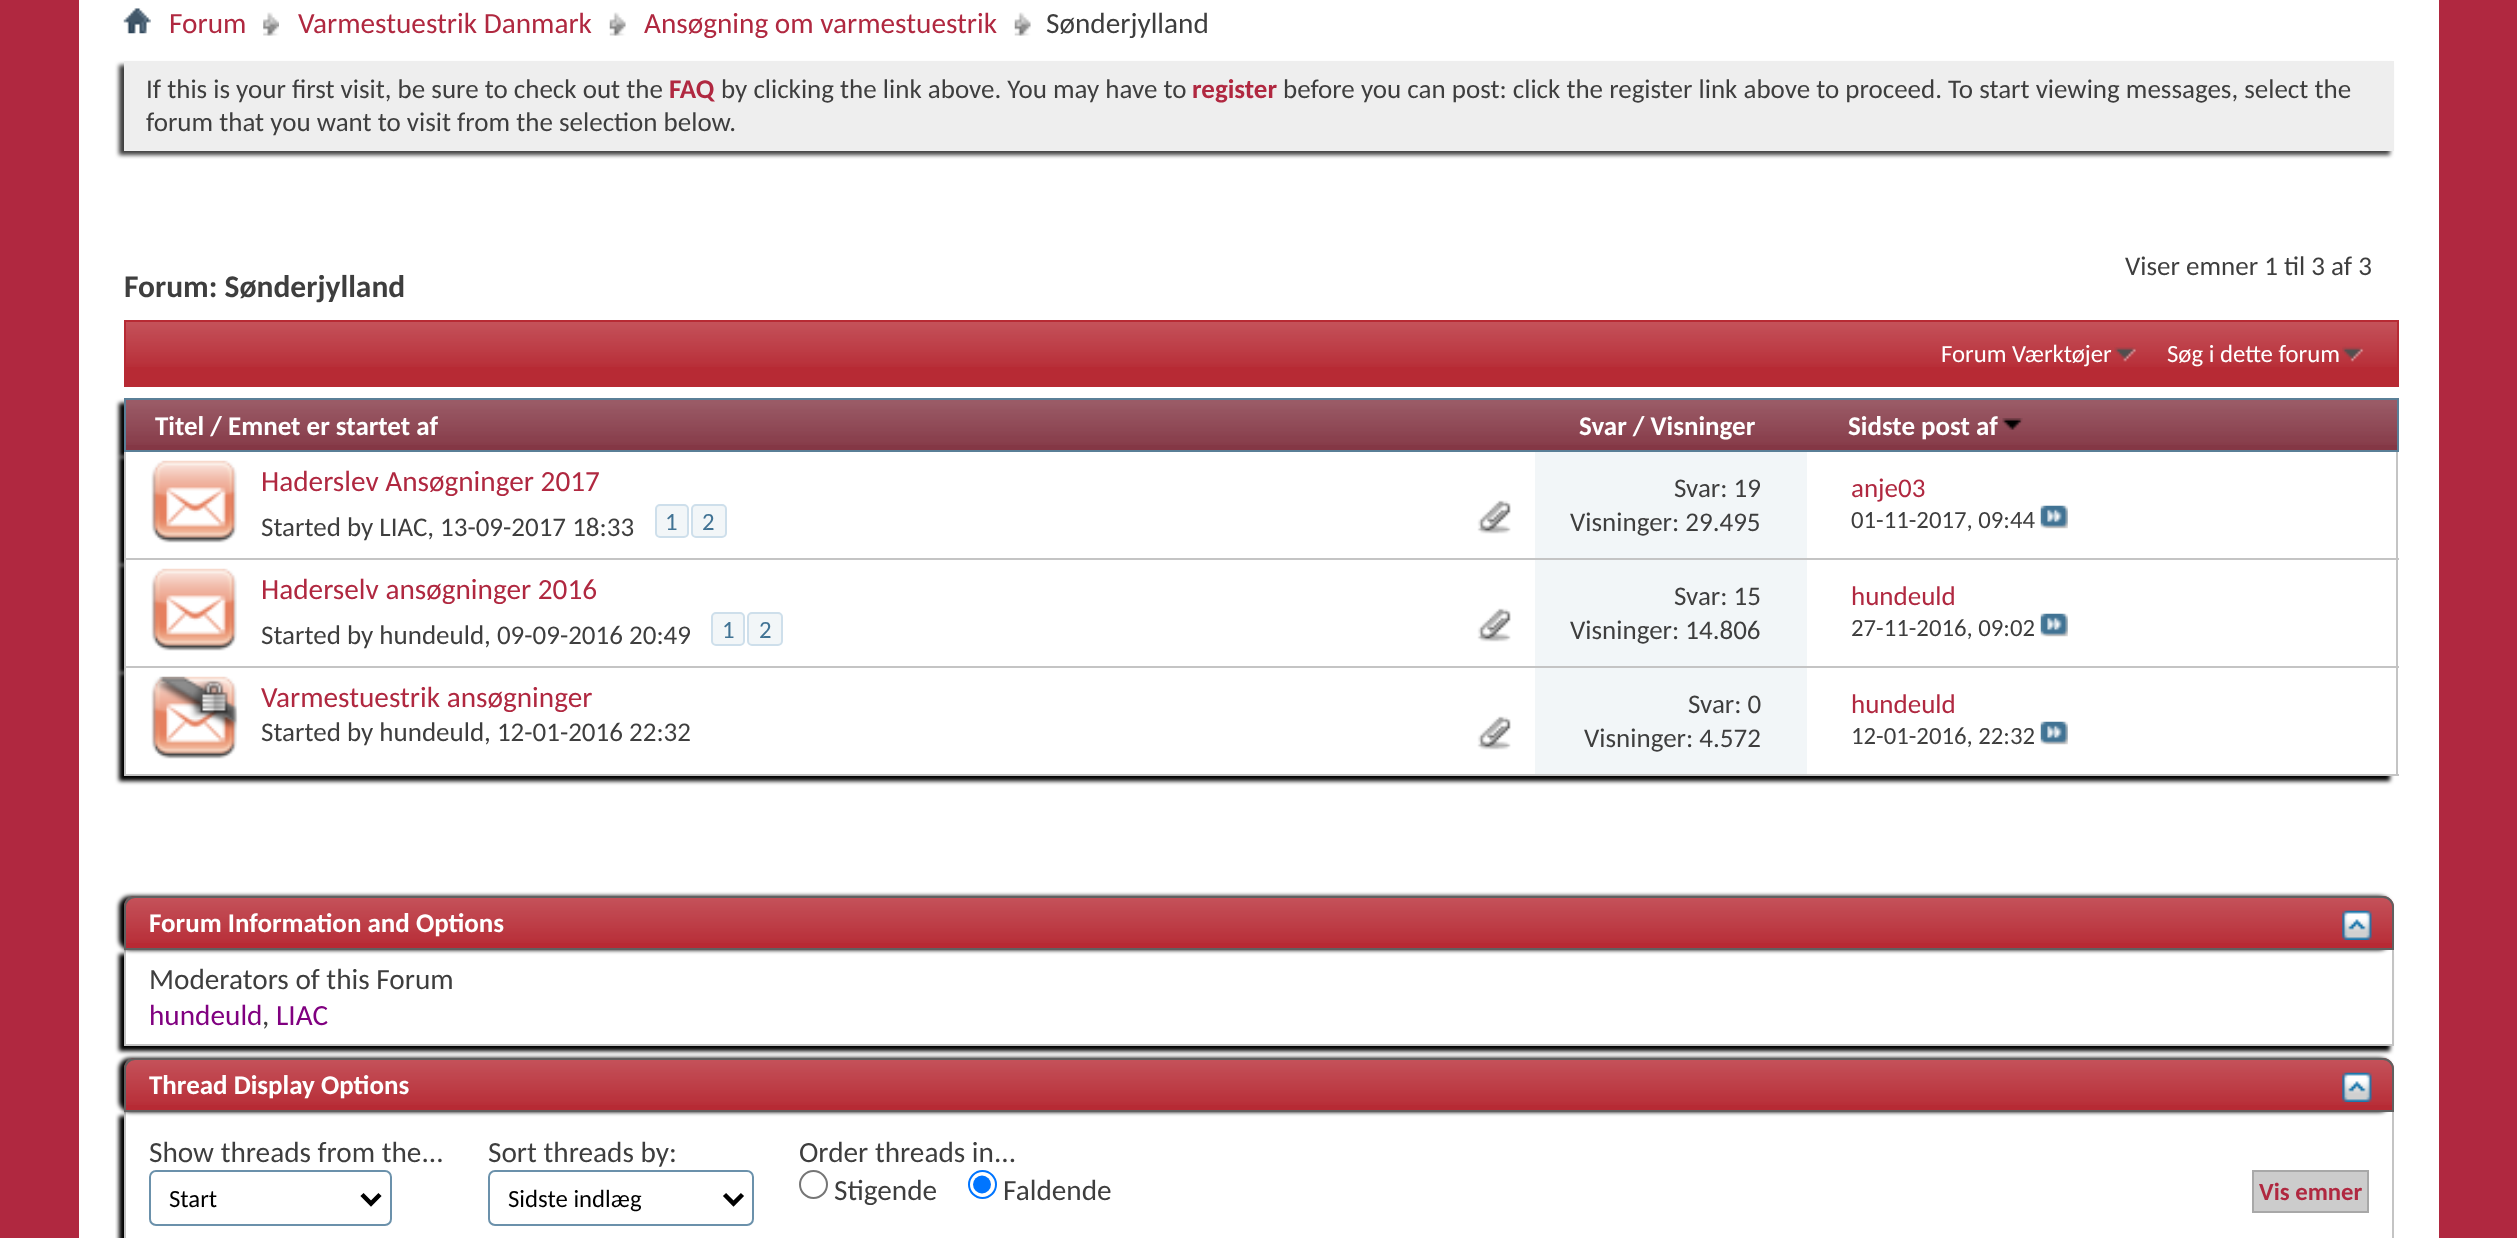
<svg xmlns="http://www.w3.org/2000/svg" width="2517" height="1238">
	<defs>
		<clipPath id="clip1"><path d="M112 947H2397V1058H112ZM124 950H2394V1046H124Z" clip-rule="evenodd" /></clipPath>
		<clipPath id="clip2"><rect x="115" y="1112" width="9" height="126" /></clipPath>
	</defs>
	<rect width="100%" height="100%" fill="#B02840" />
	<rect x="79" y="0" width="2360" height="1238" fill="#FFFFFF" />
	<image x="123" y="8" width="28" height="26" href="assets/img1.png" />
	<image x="263" y="12" width="16" height="24" href="assets/img2.png" />
	<text x="169" y="33" font-family="Carlito" font-size="29.25" fill="#B02840">Forum</text>
	<image x="609" y="12" width="17" height="24" href="assets/img3.png" />
	<text x="298" y="33" font-family="Carlito" font-size="29.25" fill="#B02840">Varmestuestrik Danmark</text>
	<image x="1014" y="12" width="17" height="24" href="assets/img3.png" />
	<text x="644" y="33" font-family="Carlito" font-size="29.25" fill="#B02840">Ansøgning om varmestuestrik</text>
	<text x="1046" y="33" font-family="Carlito" font-size="29.25" fill="#3E3E3E">Sønderjylland</text>
	<rect x="119" y="65" width="2271" height="90" fill="#3E3E3E" filter="blur(2px)" />
	<rect x="124" y="61" width="2270" height="90" fill="#EEEEEE" />
	<text x="146" y="98" font-family="Carlito" font-size="27" fill="#3E3E3E">If this is your first visit, be sure to check out the</text>
	<text x="669" y="98" font-family="Carlito" font-size="27" font-weight="700" fill="#B02840">FAQ</text>
	<text x="721" y="98" font-family="Carlito" font-size="27" fill="#3E3E3E">by clicking the link above. You may have to</text>
	<text x="1192" y="98" font-family="Carlito" font-size="27" font-weight="700" fill="#B02840">register</text>
	<g font-family="Carlito" font-size="27" fill="#3E3E3E">
		<text x="1283" y="98">before you can post: click the register link above to proceed. To start viewing messages, select the</text>
		<text x="146" y="131">forum that you want to visit from the selection below.</text>
		<text x="2125" y="275">Viser emner 1 til 3 af 3</text>
	</g>
	<text x="124" y="297" font-family="Carlito" font-size="31.5" font-weight="700" fill="#3E3E3E">Forum: Sønderjylland</text>
	<rect x="126" y="322" width="2271" height="63" fill="#B72A34" />
	<image x="126" y="322" width="2271" height="45" href="assets/img4.png" />
	<rect x="125" y="321" width="2273" height="65" fill="none" stroke="#B72A34" stroke-width="2" />
	<image x="2114" y="347" width="22" height="15" href="assets/img5.png" />
	<text x="1941" y="362" font-family="Carlito" font-size="24.75" fill="#FFFFFF">Forum Værktøjer</text>
	<image x="2342" y="346" width="22" height="16" href="assets/img6.png" />
	<text x="2167" y="362" font-family="Carlito" font-size="24.75" fill="#FFFFFF">Søg i dette forum</text>
	<rect x="119" y="403" width="2275" height="54" fill="#000000" filter="blur(2px)" />
	<rect x="126" y="400" width="2271" height="50" fill="#843745" />
	<image x="123" y="400" width="2274" height="45" href="assets/img7.png" />
	<rect x="125" y="399" width="2273" height="52" fill="none" stroke="#5A7F97" stroke-width="2" />
	<g font-family="Carlito" font-size="27" font-weight="700" fill="#FFFFFF">
		<text x="155" y="435">Titel / Emnet er startet af</text>
		<text x="1579" y="435">Svar / Visninger</text>
		<text x="1848" y="435">Sidste post af</text>
	</g>
	<image x="2002" y="418" width="21" height="12" href="assets/img8.png" />
	<rect x="119" y="457" width="2271" height="108" fill="#000000" filter="blur(2px)" />
	<rect x="126" y="452" width="2273" height="106" fill="#FFFFFF" />
	<rect x="2396" y="452" width="2" height="108" fill="#C4C4C4" />
	<rect x="124" y="558" width="2275" height="2" fill="#C4C4C4" />
	<rect x="124" y="452" width="2" height="108" fill="#C4C4C4" />
	<image x="151" y="460" width="86" height="83" href="assets/img9.png" />
	<text x="261" y="491" font-family="Carlito" font-size="29.25" fill="#B02840">Haderslev Ansøgninger 2017</text>
	<text x="261" y="536" font-family="Carlito" font-size="27" fill="#3E3E3E">Started by LIAC, 13-09-2017 18:33</text>
	<rect x="656" y="505" width="32" height="32" rx="4" fill="#F2F6F8" stroke="#CEDFEB" stroke-width="2" />
	<text x="665" y="530" font-family="Carlito" font-size="24.75" fill="#417394">1</text>
	<rect x="692" y="505" width="34" height="32" rx="4" fill="#F2F6F8" stroke="#CEDFEB" stroke-width="2" />
	<text x="702" y="530" font-family="Carlito" font-size="24.75" fill="#417394">2</text>
	<image x="1477" y="500" width="34" height="34" href="assets/img10.png" />
	<rect x="1535" y="452" width="272" height="106" fill="#F2F6F8" />
	<g font-family="Carlito" font-size="27" fill="#3E3E3E">
		<text x="1674" y="497">Svar: 19</text>
		<text x="1570" y="531">Visninger: 29.495</text>
	</g>
	<text x="1851" y="497" font-family="Carlito" font-size="27" fill="#B02840">anje03</text>
	<text x="1851" y="528" font-family="Carlito" font-size="24.75" fill="#3E3E3E">01-11-2017, 09:44</text>
	<image x="2040" y="505" width="28" height="24" href="assets/img11.png" />
	<rect x="119" y="565" width="2271" height="108" fill="#000000" filter="blur(2px)" />
	<rect x="126" y="560" width="2269" height="106" fill="#FFFFFF" />
	<rect x="2396" y="560" width="2" height="108" fill="#C4C4C4" />
	<rect x="124" y="666" width="2275" height="2" fill="#C4C4C4" />
	<rect x="124" y="560" width="2" height="108" fill="#C4C4C4" />
	<image x="151" y="568" width="86" height="83" href="assets/img9.png" />
	<text x="261" y="599" font-family="Carlito" font-size="29.25" fill="#B02840">Haderselv ansøgninger 2016</text>
	<text x="261" y="644" font-family="Carlito" font-size="27" fill="#3E3E3E">Started by hundeuld, 09-09-2016 20:49</text>
	<rect x="712" y="613" width="32" height="32" rx="4" fill="#F2F6F8" stroke="#CEDFEB" stroke-width="2" />
	<text x="722" y="638" font-family="Carlito" font-size="24.75" fill="#417394">1</text>
	<rect x="748" y="613" width="34" height="32" rx="4" fill="#F2F6F8" stroke="#CEDFEB" stroke-width="2" />
	<text x="759" y="638" font-family="Carlito" font-size="24.75" fill="#417394">2</text>
	<image x="1477" y="608" width="34" height="34" href="assets/img10.png" />
	<rect x="1535" y="560" width="272" height="106" fill="#F2F6F8" />
	<g font-family="Carlito" font-size="27" fill="#3E3E3E">
		<text x="1674" y="605">Svar: 15</text>
		<text x="1570" y="639">Visninger: 14.806</text>
	</g>
	<text x="1851" y="605" font-family="Carlito" font-size="27" fill="#B02840">hundeuld</text>
	<text x="1851" y="636" font-family="Carlito" font-size="24.75" fill="#3E3E3E">27-11-2016, 09:02</text>
	<image x="2040" y="613" width="28" height="24" href="assets/img11.png" />
	<rect x="119" y="673" width="2271" height="108" fill="#000000" filter="blur(2px)" />
	<rect x="126" y="668" width="2269" height="106" fill="#FFFFFF" />
	<rect x="2396" y="668" width="2" height="108" fill="#C4C4C4" />
	<rect x="124" y="774" width="2275" height="2" fill="#C4C4C4" />
	<rect x="124" y="668" width="2" height="108" fill="#C4C4C4" />
	<image x="151" y="676" width="87" height="83" href="assets/img12.png" />
	<text x="261" y="707" font-family="Carlito" font-size="29.25" fill="#B02840">Varmestuestrik ansøgninger</text>
	<text x="261" y="741" font-family="Carlito" font-size="27" fill="#3E3E3E">Started by hundeuld, 12-01-2016 22:32</text>
	<image x="1477" y="716" width="34" height="34" href="assets/img10.png" />
	<rect x="1535" y="668" width="272" height="106" fill="#F2F6F8" />
	<g font-family="Carlito" font-size="27" fill="#3E3E3E">
		<text x="1688" y="713">Svar: 0</text>
		<text x="1584" y="747">Visninger: 4.572</text>
	</g>
	<text x="1851" y="713" font-family="Carlito" font-size="27" fill="#B02840">hundeuld</text>
	<text x="1851" y="744" font-family="Carlito" font-size="24.75" fill="#3E3E3E">12-01-2016, 22:32</text>
	<image x="2040" y="721" width="28" height="24" href="assets/img11.png" />
	<g clip-path="url(#clip1)">
		<rect x="119" y="954" width="2271" height="97" fill="#000000" filter="blur(2px)" />
	</g>
	<rect x="2392" y="950" width="2" height="96" fill="#C4C4C4" />
	<rect x="124" y="1044" width="2270" height="2" fill="#C4C4C4" />
	<rect x="124" y="950" width="2" height="96" fill="#C4C4C4" />
	<rect x="119" y="896" width="2271" height="54" rx="11" fill="#000000" filter="blur(2px)" />
	<path d="M135 896H2383C2389 896 2394 901 2394 907V950H124V907C124 901 129 896 135 896Z" fill="#B72A34" />
	<image x="124" y="897" width="2270" height="46" href="assets/img13.png" />
	<path d="M135 897H2383C2388.5 897 2393 901.5 2393 907V949H125V907C125 901.5 129.5 897 135 897Z" fill="none" stroke="#606060" stroke-width="2" />
	<text x="149" y="932" font-family="Carlito" font-size="27" font-weight="700" fill="#FFFFFF">Forum Information and Options</text>
	<image x="2342" y="910" width="30" height="30" href="assets/img14.png" />
	<text x="149" y="989" font-family="Carlito" font-size="29.25" fill="#3E3E3E">Moderators of this Forum</text>
	<text x="149" y="1025" font-family="Carlito" font-size="29.25" fill="#800080">hundeuld</text>
	<text x="262" y="1025" font-family="Carlito" font-size="29.25" fill="#3E3E3E">,</text>
	<text x="276" y="1025" font-family="Carlito" font-size="29.25" fill="#800080">LIAC</text>
	<g clip-path="url(#clip2)">
		<rect x="119" y="1116" width="2271" height="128" fill="#000000" filter="blur(2px)" />
	</g>
	<rect x="2392" y="1112" width="2" height="126" fill="#C4C4C4" />
	<rect x="124" y="1112" width="2" height="126" fill="#C4C4C4" />
	<rect x="119" y="1058" width="2271" height="54" rx="11" fill="#000000" filter="blur(2px)" />
	<path d="M135 1058H2383C2389 1058 2394 1063 2394 1069V1112H124V1069C124 1063 129 1058 135 1058Z" fill="#B72A34" />
	<image x="124" y="1059" width="2270" height="46" href="assets/img13.png" />
	<path d="M135 1059H2383C2388.5 1059 2393 1063.5 2393 1069V1111H125V1069C125 1063.5 129.5 1059 135 1059Z" fill="none" stroke="#606060" stroke-width="2" />
	<text x="149" y="1094" font-family="Carlito" font-size="27" font-weight="700" fill="#FFFFFF">Thread Display Options</text>
	<image x="2342" y="1072" width="30" height="30" href="assets/img14.png" />
	<text x="149" y="1162" font-family="Carlito" font-size="29.25" fill="#3E3E3E">Show threads from the...</text>
	<rect x="150" y="1171" width="241" height="54" rx="6" fill="none" stroke="#6B91AB" stroke-width="2" />
	<path d="M362 1194.5L371 1203.5L380 1194.5" fill="none" stroke="#000000" stroke-width="4.5" />
	<text x="169" y="1207" font-family="Carlito" font-size="24.75" fill="#000000">Start</text>
	<text x="488" y="1162" font-family="Carlito" font-size="29.25" fill="#3E3E3E">Sort threads by:</text>
	<rect x="489" y="1171" width="264" height="54" rx="6" fill="none" stroke="#6B91AB" stroke-width="2" />
	<path d="M724.5 1194.5L733.5 1203.5L742.5 1194.5" fill="none" stroke="#000000" stroke-width="4.5" />
	<text x="508" y="1207" font-family="Carlito" font-size="24.75" fill="#000000">Sidste indlæg</text>
	<text x="799" y="1162" font-family="Carlito" font-size="29.25" fill="#3E3E3E">Order threads in...</text>
	<circle cx="813.5" cy="1184.5" r="13.5" fill="none" stroke="#767676" stroke-width="2" />
	<text x="834" y="1200" font-family="Carlito" font-size="29.25" fill="#3E3E3E">Stigende</text>
	<circle cx="982.5" cy="1184.5" r="13.5" fill="none" stroke="#0075FF" stroke-width="2" />
	<circle cx="982" cy="1184.5" r="9" fill="#0075FF" />
	<text x="1003" y="1200" font-family="Carlito" font-size="29.25" fill="#3E3E3E">Faldende</text>
	<rect x="2253" y="1171" width="115" height="41" fill="#CCCCCC" stroke="#A8A8A8" stroke-width="2" />
	<text x="2259" y="1200" font-family="Carlito" font-size="24.75" font-weight="700" fill="#B02840">Vis emner</text>
</svg>
